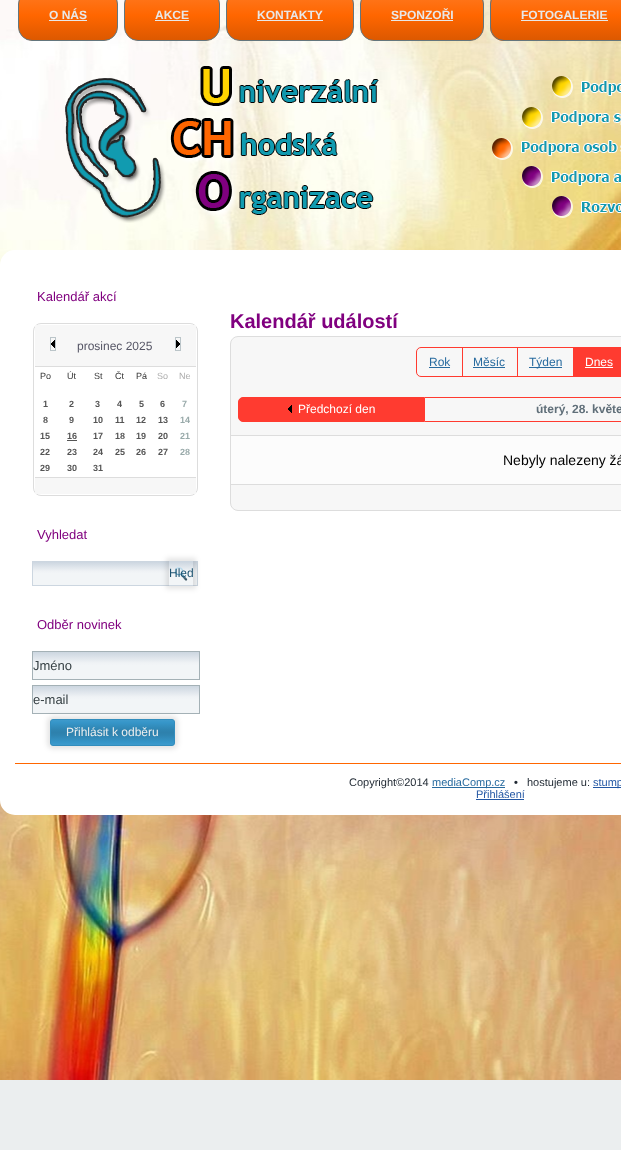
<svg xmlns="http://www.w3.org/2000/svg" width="621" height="1150">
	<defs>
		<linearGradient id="g1" gradientUnits="userSpaceOnUse" x1="68" y1="-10" x2="68" y2="41"><stop offset="0" stop-color="#FF7B24" /><stop offset="0.5" stop-color="#FF6600" /><stop offset="1" stop-color="#DB5800" /></linearGradient>
		<linearGradient id="g2" gradientUnits="userSpaceOnUse" x1="172" y1="-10" x2="172" y2="41"><stop offset="0" stop-color="#FF7B24" /><stop offset="0.5" stop-color="#FF6600" /><stop offset="1" stop-color="#DB5800" /></linearGradient>
		<linearGradient id="g3" gradientUnits="userSpaceOnUse" x1="290" y1="-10" x2="290" y2="41"><stop offset="0" stop-color="#FF7B24" /><stop offset="0.5" stop-color="#FF6600" /><stop offset="1" stop-color="#DB5800" /></linearGradient>
		<linearGradient id="g4" gradientUnits="userSpaceOnUse" x1="422" y1="-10" x2="422" y2="41"><stop offset="0" stop-color="#FF7B24" /><stop offset="0.5" stop-color="#FF6600" /><stop offset="1" stop-color="#DB5800" /></linearGradient>
		<linearGradient id="g5" gradientUnits="userSpaceOnUse" x1="565" y1="-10" x2="565" y2="41"><stop offset="0" stop-color="#FF7B24" /><stop offset="0.5" stop-color="#FF6600" /><stop offset="1" stop-color="#DB5800" /></linearGradient>
		<linearGradient id="g6" gradientUnits="userSpaceOnUse" x1="115" y1="562" x2="115" y2="585"><stop offset="0" stop-color="#CCD6E0" /><stop offset="0.4" stop-color="#EFF2F5" /><stop offset="0.5" stop-color="#F2F5F7" /><stop offset="1" stop-color="#F2F5F7" /></linearGradient>
		<clipPath id="clip1"><path d="M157 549H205V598H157ZM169 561H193V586H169Z" clip-rule="evenodd" /></clipPath>
		<linearGradient id="g7" gradientUnits="userSpaceOnUse" x1="116" y1="652" x2="116" y2="679"><stop offset="0" stop-color="#CCD6E0" /><stop offset="0.4" stop-color="#EFF2F5" /><stop offset="0.5" stop-color="#F2F5F7" /><stop offset="1" stop-color="#F2F5F7" /></linearGradient>
		<linearGradient id="g8" gradientUnits="userSpaceOnUse" x1="116" y1="686" x2="116" y2="713"><stop offset="0" stop-color="#CCD6E0" /><stop offset="0.4" stop-color="#EFF2F5" /><stop offset="0.5" stop-color="#F2F5F7" /><stop offset="1" stop-color="#F2F5F7" /></linearGradient>
		<linearGradient id="g9" gradientUnits="userSpaceOnUse" x1="113" y1="719" x2="113" y2="746"><stop offset="0" stop-color="#429CCD" /><stop offset="0.13" stop-color="#3696C9" /><stop offset="0.4" stop-color="#2F84B1" /><stop offset="0.5" stop-color="#2E81AD" /><stop offset="0.6" stop-color="#2F84B1" /><stop offset="0.87" stop-color="#3696C9" /><stop offset="1" stop-color="#429CCD" /></linearGradient>
	</defs>
	<rect width="100%" height="100%" fill="#EBEEEF" />
	<image x="0" y="0" width="621" height="1080" href="assets/img1.png" />
	<image x="65" y="43" width="556" height="180" href="assets/img2.png" />
	<rect x="18.5" y="-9.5" width="99" height="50" rx="13.5" fill="url(#g1)" stroke="#64767D" />
	<text x="49" y="19" font-family="Liberation Sans" font-size="12" font-weight="700" fill="#E8E8E8">O NÁS</text>
	<rect x="49" y="20" width="38" height="1" fill="#E8E8E8" />
	<rect x="124.5" y="-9.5" width="95" height="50" rx="13.5" fill="url(#g2)" stroke="#64767D" />
	<text x="155" y="19" font-family="Liberation Sans" font-size="12" font-weight="700" fill="#E8E8E8">AKCE</text>
	<rect x="155" y="20" width="34" height="1" fill="#E8E8E8" />
	<rect x="226.5" y="-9.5" width="127" height="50" rx="13.5" fill="url(#g3)" stroke="#64767D" />
	<text x="257" y="19" font-family="Liberation Sans" font-size="12" font-weight="700" fill="#E8E8E8">KONTAKTY</text>
	<rect x="257" y="20" width="66" height="1" fill="#E8E8E8" />
	<rect x="360.5" y="-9.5" width="123" height="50" rx="13.5" fill="url(#g4)" stroke="#64767D" />
	<text x="391" y="19" font-family="Liberation Sans" font-size="12" font-weight="700" fill="#E8E8E8">SPONZOŘI</text>
	<rect x="391" y="20" width="62" height="1" fill="#E8E8E8" />
	<rect x="490" y="-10" width="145" height="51" rx="14" fill="url(#g5)" />
	<rect x="490.5" y="-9.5" width="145" height="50" rx="13.5" fill="none" stroke="#64767D" />
	<text x="521" y="19" font-family="Liberation Sans" font-size="12" font-weight="700" fill="#E8E8E8">FOTOGALERIE</text>
	<rect x="521" y="20" width="87" height="1" fill="#E8E8E8" />
	<rect x="0" y="250" width="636" height="565" rx="15" fill="#FFFFFF" />
	<text x="37" y="301" font-family="Liberation Sans" font-size="13" fill="#80007F">Kalendář akcí</text>
	<rect x="33.5" y="323.5" width="164" height="172" rx="7.5" fill="none" stroke="#DDDDDD" />
	<rect x="35" y="325" width="161" height="41" fill="#F7F7F7" />
	<rect x="35" y="366" width="161" height="1" fill="#DDDDDD" />
	<rect x="50.5" y="337.5" width="5" height="13" fill="none" stroke="#BBC5C9" />
	<image x="51" y="340" width="4" height="8" href="assets/img3.png" />
	<text x="77" y="350" font-family="Liberation Sans" font-size="12" fill="#565666">prosinec 2025</text>
	<rect x="175.5" y="337.5" width="5" height="13" fill="none" stroke="#BBC5C9" />
	<image x="176" y="340" width="4" height="8" href="assets/img4.png" />
	<g font-family="Liberation Sans" font-size="9" fill="#333333">
		<text x="40" y="379">Po</text>
		<text x="67" y="379">Út</text>
		<text x="94" y="379">St</text>
		<text x="115" y="379">Čt</text>
		<text x="136" y="379">Pá</text>
	</g>
	<g font-family="Liberation Sans" font-size="9" fill="#ADADAD">
		<text x="157" y="379">So</text>
		<text x="179" y="379">Ne</text>
	</g>
	<g font-family="Liberation Sans" font-size="9" font-weight="700" fill="#555555">
		<text x="43" y="407">1</text>
		<text x="69" y="407">2</text>
		<text x="95" y="407">3</text>
		<text x="117" y="407">4</text>
		<text x="139" y="407">5</text>
		<text x="160" y="407">6</text>
	</g>
	<text x="182" y="407" font-family="Liberation Sans" font-size="9" font-weight="700" fill="#99AAAA">7</text>
	<g font-family="Liberation Sans" font-size="9" font-weight="700" fill="#555555">
		<text x="43" y="423">8</text>
		<text x="69" y="423">9</text>
		<text x="93" y="423">10</text>
		<text x="115" y="423">11</text>
		<text x="136" y="423">12</text>
		<text x="158" y="423">13</text>
	</g>
	<text x="180" y="423" font-family="Liberation Sans" font-size="9" font-weight="700" fill="#99AAAA">14</text>
	<g font-family="Liberation Sans" font-size="9" font-weight="700" fill="#555555">
		<text x="40" y="439">15</text>
		<text x="67" y="439">16</text>
	</g>
	<rect x="67" y="440" width="10" height="1" fill="#555555" />
	<g font-family="Liberation Sans" font-size="9" font-weight="700" fill="#555555">
		<text x="93" y="439">17</text>
		<text x="115" y="439">18</text>
		<text x="136" y="439">19</text>
		<text x="158" y="439">20</text>
	</g>
	<text x="180" y="439" font-family="Liberation Sans" font-size="9" font-weight="700" fill="#99AAAA">21</text>
	<g font-family="Liberation Sans" font-size="9" font-weight="700" fill="#555555">
		<text x="40" y="455">22</text>
		<text x="67" y="455">23</text>
		<text x="93" y="455">24</text>
		<text x="115" y="455">25</text>
		<text x="136" y="455">26</text>
		<text x="158" y="455">27</text>
	</g>
	<text x="180" y="455" font-family="Liberation Sans" font-size="9" font-weight="700" fill="#99AAAA">28</text>
	<g font-family="Liberation Sans" font-size="9" font-weight="700" fill="#555555">
		<text x="40" y="471">29</text>
		<text x="67" y="471">30</text>
		<text x="93" y="471">31</text>
	</g>
	<rect x="35" y="478" width="161" height="16" fill="#F7F7F7" />
	<rect x="35" y="477" width="161" height="1" fill="#DDDDDD" />
	<text x="37" y="539" font-family="Liberation Sans" font-size="13" fill="#80007F">Vyhledat</text>
	<rect x="33" y="562" width="164" height="23" fill="url(#g6)" />
	<rect x="32.5" y="561.5" width="165" height="24" fill="none" stroke="#CCD6E0" />
	<g clip-path="url(#clip1)">
		<rect x="166" y="558" width="30" height="31" fill="#000000" fill-opacity="0.1" filter="blur(2.5px)" />
	</g>
	<image x="174" y="567" width="14" height="14" href="assets/img5.png" />
	<text x="169" y="577" font-family="Liberation Sans" font-size="12" fill="#1E5471">Hled</text>
	<text x="37" y="629" font-family="Liberation Sans" font-size="13" fill="#80007F">Odběr novinek</text>
	<rect x="33" y="652" width="166" height="27" fill="url(#g7)" />
	<rect x="32.5" y="651.5" width="167" height="28" fill="none" stroke="#A4B1B6" />
	<text x="33" y="670" font-family="Liberation Sans" font-size="13" fill="#364044">Jméno</text>
	<rect x="33" y="686" width="166" height="27" fill="url(#g8)" />
	<rect x="32.5" y="685.5" width="167" height="28" fill="none" stroke="#A4B1B6" />
	<text x="33" y="704" font-family="Liberation Sans" font-size="13" fill="#364044">e-mail</text>
	<rect x="47" y="716" width="131" height="33" rx="6" fill="#000000" fill-opacity="0.1" filter="blur(2.5px)" />
	<rect x="50.5" y="719.5" width="124" height="26" rx="2.5" fill="url(#g9)" stroke="#328DBD" />
	<text x="66" y="736" font-family="Liberation Sans" font-size="12" fill="#EBEEEF">Přihlásit k odběru</text>
	<text x="230" y="328" font-family="Liberation Sans" font-size="20" font-weight="700" fill="#80007F">Kalendář událostí</text>
	<rect x="230.5" y="336.5" width="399" height="174" rx="7.5" fill="#F7F7F7" stroke="#DDDDDD" />
	<path d="M421 347.5H462.5V376.5H421C418.5 376.5 416.5 374.5 416.5 372V352C416.5 349.5 418.5 347.5 421 347.5Z" fill="none" stroke="#FF3B30" />
	<text x="429" y="366" font-family="Liberation Sans" font-size="12" fill="#286B9F">Rok</text>
	<rect x="429" y="367" width="21" height="1" fill="#286B9F" />
	<rect x="461" y="347" width="57" height="1" fill="#FF3B30" />
	<rect x="517" y="347" width="1" height="30" fill="#FF3B30" />
	<rect x="461" y="376" width="160" height="1" fill="#FF3B30" />
	<text x="473" y="366" font-family="Liberation Sans" font-size="12" fill="#286B9F">Měsíc</text>
	<rect x="473" y="367" width="32" height="1" fill="#286B9F" />
	<rect x="517" y="347" width="58" height="1" fill="#FF3B30" />
	<rect x="529" y="367" width="33" height="1" fill="#286B9F" />
	<text x="529" y="366" font-family="Liberation Sans" font-size="12" fill="#286B9F">Týden</text>
	<rect x="573" y="347" width="48" height="29" fill="#FF3B30" />
	<text x="585" y="366" font-family="Liberation Sans" font-size="12" fill="#FFFFFF">Dnes</text>
	<rect x="585" y="367" width="28" height="1" fill="#FFFFFF" />
	<path d="M243 397.5H424.5V421.5H243C240.5 421.5 238.5 419.5 238.5 417V402C238.5 399.5 240.5 397.5 243 397.5Z" fill="#FF3B30" stroke="#FF3B30" />
	<image x="288" y="405" width="4" height="8" href="assets/img6.png" />
	<text x="298" y="413" font-family="Liberation Sans" font-size="12" fill="#FFFFFF">Předchozí den</text>
	<rect x="425" y="397" width="196" height="1" fill="#FF3B30" />
	<rect x="425" y="421" width="196" height="1" fill="#FF3B30" />
	<text x="536" y="413" font-family="Liberation Sans" font-size="12" font-weight="700" fill="#606F79">úterý, 28. květe</text>
	<rect x="230.5" y="435.5" width="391" height="49" fill="#FCFCFC" stroke="#DDDDDD" />
	<text x="503" y="465" font-family="Liberation Sans" font-size="14" fill="#000000">Nebyly nalezeny žá</text>
	<rect x="15" y="763" width="606" height="1" fill="#FF6600" />
	<text x="349" y="786" font-family="Liberation Sans" font-size="11" fill="#1D2630">Copyright©2014</text>
	<rect x="432" y="787" width="73" height="1" fill="#286B9F" />
	<text x="432" y="786" font-family="Liberation Sans" font-size="11" fill="#286B9F">mediaComp.cz</text>
	<text x="514" y="786" font-family="Liberation Sans" font-size="11" font-weight="700" fill="#1D2630">•</text>
	<text x="527" y="786" font-family="Liberation Sans" font-size="11" fill="#1D2630">hostujeme u:</text>
	<rect x="593" y="787" width="28" height="1" fill="#2357A4" />
	<g font-family="Liberation Sans" font-size="11" fill="#2357A4">
		<text x="593" y="786">stump</text>
		<text x="476" y="798">Přihlášení</text>
	</g>
	<rect x="476" y="799" width="48" height="1" fill="#2357A4" />
</svg>
